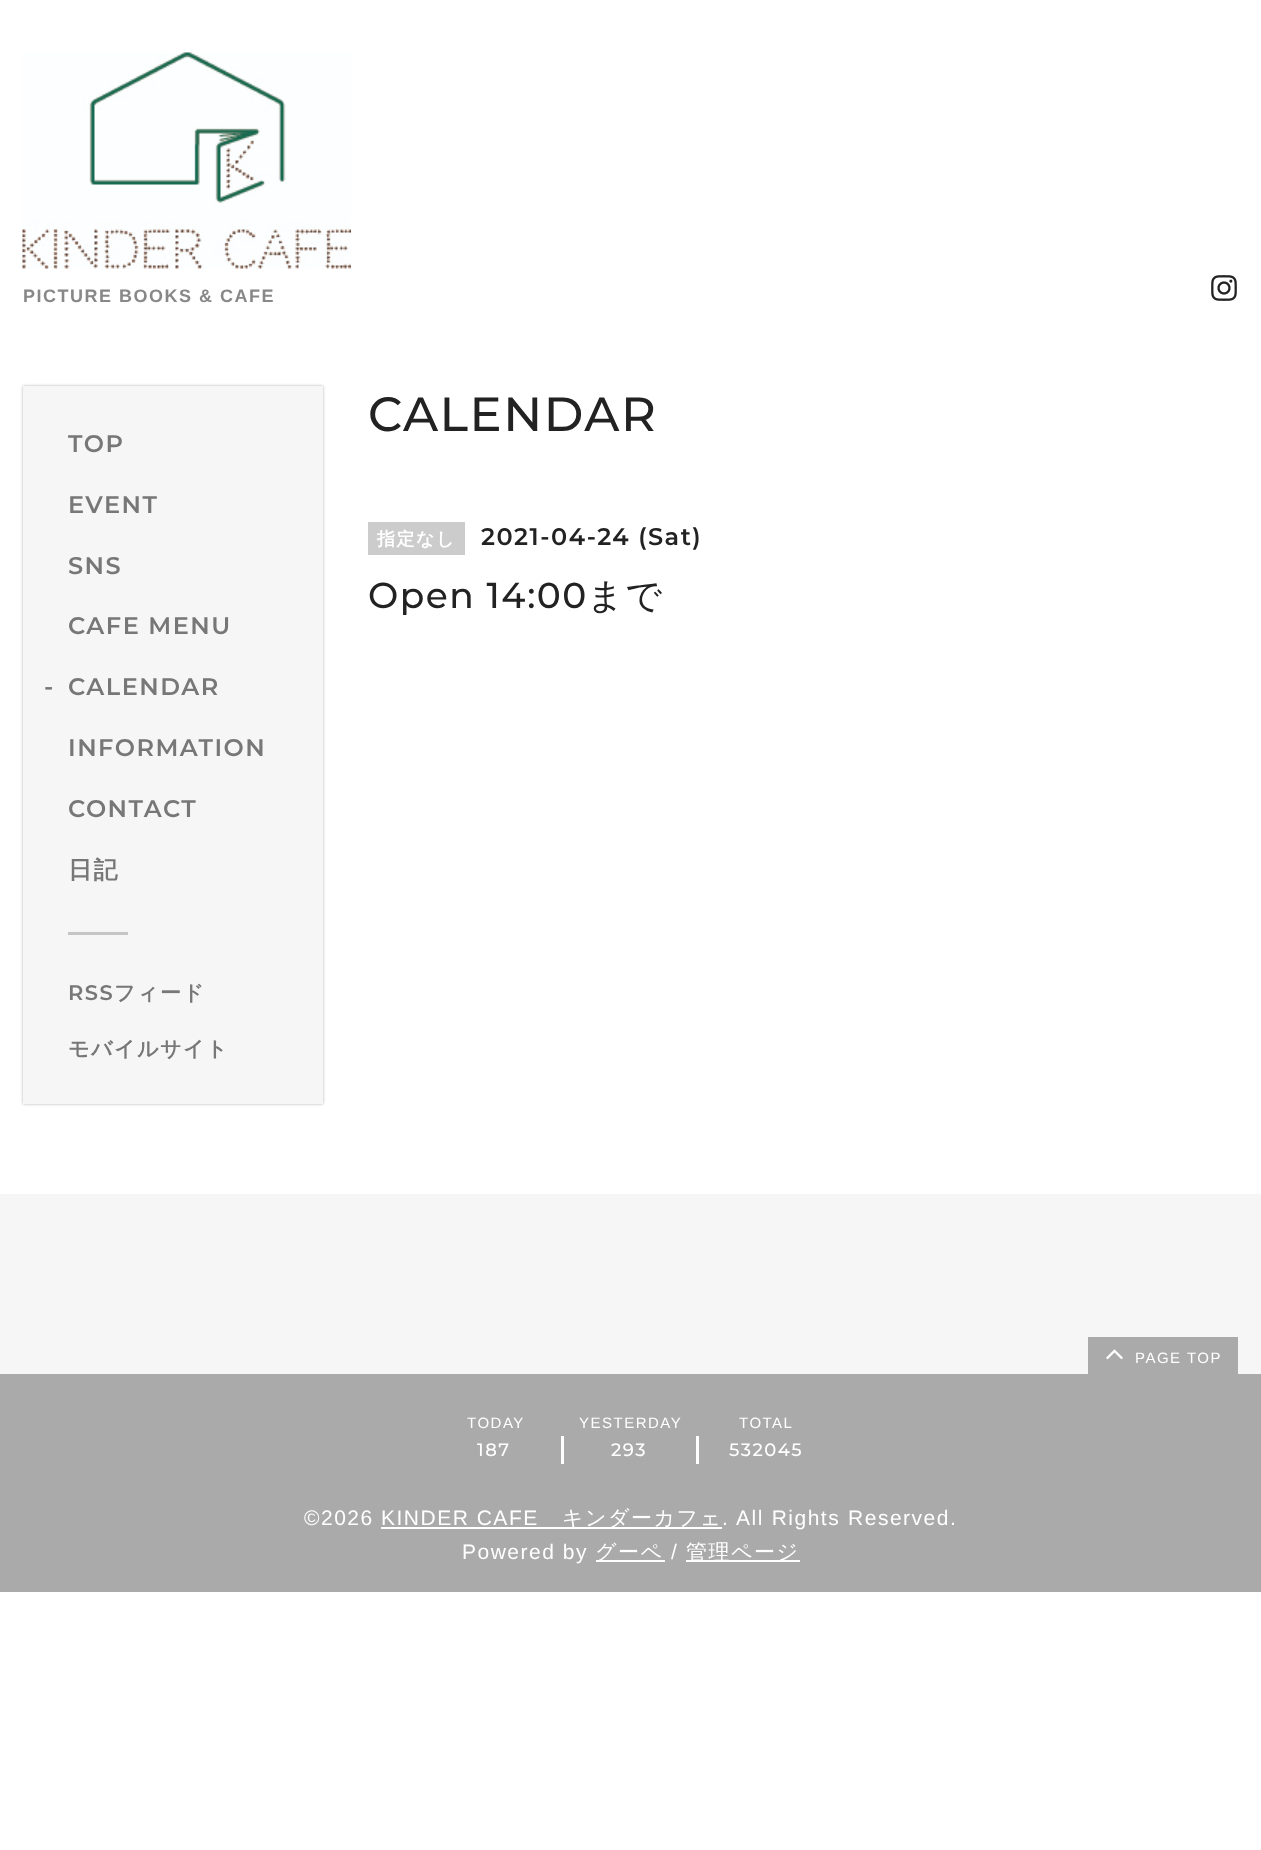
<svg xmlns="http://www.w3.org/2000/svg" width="1261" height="1850">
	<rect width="100%" height="100%" fill="#FFFFFF" />
	<image x="22" y="52" width="329" height="217" href="assets/img1.png" />
	<text x="23" y="302" font-family="Liberation Sans" font-size="18" font-weight="700" letter-spacing="1.5" fill="#888888">PICTURE BOOKS &amp; CAFE</text>
	<image x="1211" y="275" width="26" height="26" href="assets/img2.png" />
	<rect x="23" y="386" width="300" height="718" fill="#000000" fill-opacity="0.3" filter="blur(1.5px)" />
	<rect x="23" y="386" width="300" height="718" fill="#F6F6F6" />
	<g font-family="Montserrat" font-size="24" font-weight="600" letter-spacing="1.5" fill="#777777">
		<text x="68" y="452">TOP</text>
		<text x="68" y="513">EVENT</text>
		<text x="68" y="574">SNS</text>
		<text x="68" y="634">CAFE MENU</text>
		<text x="44" y="695">-</text>
		<text x="68" y="695">CALENDAR</text>
		<text x="68" y="756">INFORMATION</text>
		<text x="68" y="817">CONTACT</text>
	</g>
	<text x="68" y="878" font-family="WenQuanYi Zen Hei" font-size="24" font-weight="700" letter-spacing="1.5" fill="#777777">日記</text>
	<rect x="68" y="932" width="60" height="3" fill="#C5C5C5" />
	<text x="68" y="1000" font-family="Montserrat" font-size="21" font-weight="600" letter-spacing="1.5" fill="#777777">RSS</text>
	<g font-family="WenQuanYi Zen Hei" font-size="21" font-weight="700" letter-spacing="1.5" fill="#777777">
		<text x="114" y="1000">フィード</text>
		<text x="68" y="1056">モバイルサイト</text>
	</g>
	<text x="368" y="431" font-family="Montserrat" font-size="48" font-weight="500" letter-spacing="1.5" fill="#222222">CALENDAR</text>
	<rect x="368" y="522" width="97" height="33" fill="#CCCCCC" />
	<text x="377" y="545" font-family="WenQuanYi Zen Hei" font-size="18" font-weight="700" letter-spacing="1.5" fill="#FFFFFF">指定なし</text>
	<text x="481" y="545" font-family="Montserrat" font-size="24" font-weight="600" letter-spacing="1.5" fill="#222222">2021-04-24 (Sat)</text>
	<text x="368" y="608" font-family="Montserrat" font-size="36" font-weight="500" letter-spacing="1.5" fill="#222222">Open 14:00</text>
	<text x="587" y="608" font-family="WenQuanYi Zen Hei" font-size="36" font-weight="500" letter-spacing="1.5" fill="#222222">まで</text>
	<rect x="0" y="1194" width="1261" height="180" fill="#F6F6F6" />
	<rect x="0" y="1374" width="1261" height="218" fill="#AAAAAA" />
	<rect x="1088" y="1337" width="150" height="37" fill="#AAAAAA" />
	<image x="1106" y="1349" width="17" height="11" href="assets/img3.png" />
	<g font-family="Liberation Sans" font-size="15" letter-spacing="1.5" fill="#FFFFFF">
		<text x="1135" y="1363">PAGE TOP</text>
		<text x="467" y="1428">TODAY</text>
	</g>
	<rect x="561" y="1436" width="3" height="28" fill="#FFFFFF" />
	<text x="477" y="1456" font-family="Montserrat" font-size="18" font-weight="500" letter-spacing="1.5" fill="#FFFFFF">187</text>
	<text x="579" y="1428" font-family="Liberation Sans" font-size="15" letter-spacing="1.5" fill="#FFFFFF">YESTERDAY</text>
	<rect x="696" y="1436" width="3" height="28" fill="#FFFFFF" />
	<text x="611" y="1456" font-family="Montserrat" font-size="18" font-weight="500" letter-spacing="1.5" fill="#FFFFFF">293</text>
	<text x="739" y="1428" font-family="Liberation Sans" font-size="15" letter-spacing="1.5" fill="#FFFFFF">TOTAL</text>
	<text x="729" y="1456" font-family="Montserrat" font-size="18" font-weight="500" letter-spacing="1.5" fill="#FFFFFF">532045</text>
	<text x="304" y="1525" font-family="Liberation Sans" font-size="21" letter-spacing="1.5" fill="#FFFFFF">©2026 KINDER CAFE</text>
	<rect x="381" y="1527" width="341" height="2" fill="#FFFFFF" />
	<text x="562" y="1525" font-family="WenQuanYi Zen Hei" font-size="21" font-weight="500" letter-spacing="1.5" fill="#FFFFFF">キンダーカフェ</text>
	<g font-family="Liberation Sans" font-size="21" letter-spacing="1.5" fill="#FFFFFF">
		<text x="722" y="1525" word-spacing="0.5">. All Rights Reserved.</text>
		<text x="462" y="1559">Powered by</text>
	</g>
	<rect x="596" y="1560" width="69" height="2" fill="#FFFFFF" />
	<text x="595" y="1559" font-family="WenQuanYi Zen Hei" font-size="21" font-weight="500" letter-spacing="1.5" fill="#FFFFFF">グーペ</text>
	<text x="671" y="1559" font-family="Liberation Sans" font-size="21" letter-spacing="1.5" fill="#FFFFFF">/</text>
	<rect x="686" y="1560" width="114" height="2" fill="#FFFFFF" />
	<text x="686" y="1559" font-family="WenQuanYi Zen Hei" font-size="21" font-weight="500" letter-spacing="1.5" fill="#FFFFFF">管理ページ</text>
</svg>
